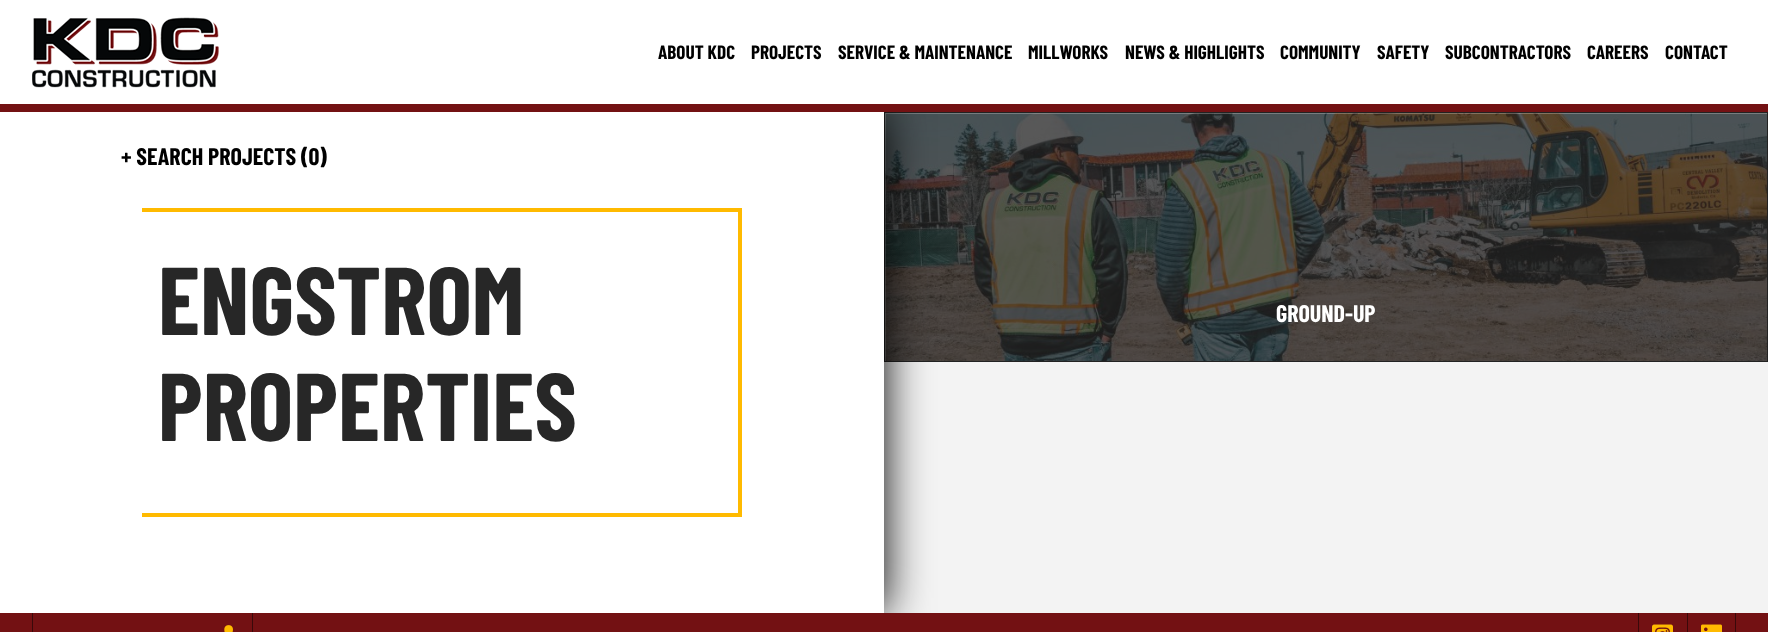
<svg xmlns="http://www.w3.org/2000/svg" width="1768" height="632">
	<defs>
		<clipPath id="clip1"><rect x="885" y="113" width="882" height="248" /></clipPath>
	</defs>
	<rect width="100%" height="100%" fill="#F3F3F3" />
	<image x="885" y="113" width="882" height="248" href="assets/img2.png" />
	<rect x="884.5" y="112.5" width="883" height="249" fill="none" stroke="#222222" />
	<text x="1276" y="322" font-family="Barlow Condensed" font-size="24" font-weight="700" fill="#FFFFFF">GROUND-UP</text>
	<g clip-path="url(#clip1)">
		<path d="M786 14H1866V460H786ZM886 114H1768V362H886Z" fill="#FFFFFF" fill-opacity="0.25" fill-rule="evenodd" />
	</g>
	<rect x="0" y="112" width="884" height="501" fill="#000000" filter="blur(22.5px)" />
	<rect x="0" y="0" width="1768" height="104" fill="#FFFFFF" />
	<rect x="0" y="104" width="1768" height="8" fill="#731113" />
	<image x="32" y="17" width="187" height="71" href="assets/img1.png" />
	<g font-family="Barlow Condensed" font-size="19.25" font-weight="700" fill="#000000">
		<text x="658" y="59">ABOUT KDC</text>
		<text x="751" y="59">PROJECTS</text>
		<text x="838" y="59">SERVICE &amp; MAINTENANCE</text>
		<text x="1028" y="59">MILLWORKS</text>
		<text x="1125" y="59">NEWS &amp; HIGHLIGHTS</text>
		<text x="1280" y="59">COMMUNITY</text>
		<text x="1377" y="59">SAFETY</text>
		<text x="1445" y="59">SUBCONTRACTORS</text>
		<text x="1587" y="59">CAREERS</text>
		<text x="1665" y="59">CONTACT</text>
	</g>
	<rect x="0" y="112" width="884" height="501" fill="#FFFFFF" />
	<text x="121" y="165" font-family="Barlow Condensed" font-size="24" font-weight="700" fill="#000000">+ SEARCH PROJECTS (0)</text>
	<rect x="142" y="208" width="600" height="4" fill="#FFBA00" />
	<rect x="738" y="208" width="4" height="309" fill="#FFBA00" />
	<rect x="142" y="513" width="600" height="4" fill="#FFBA00" />
	<g font-family="Barlow Condensed" font-size="96" font-weight="700" fill="#272727">
		<text x="158" y="335">ENGSTROM</text>
		<text x="158" y="441">PROPERTIES</text>
	</g>
	<rect x="0" y="613" width="1768" height="19" fill="#731113" />
	<rect x="252" y="613" width="1" height="19" fill="#3A090A" />
	<rect x="32" y="613" width="1" height="19" fill="#3A090A" />
	<image x="224" y="625" width="9" height="7" href="assets/img3.png" />
	<rect x="1638" y="613" width="1" height="19" fill="#3A090A" />
	<image x="1652" y="624" width="21" height="8" href="assets/img4.png" />
	<rect x="1687" y="613" width="1" height="19" fill="#3A090A" />
	<image x="1701" y="624" width="21" height="8" href="assets/img5.png" />
	<rect x="1735" y="613" width="1" height="19" fill="#3A090A" />
</svg>
